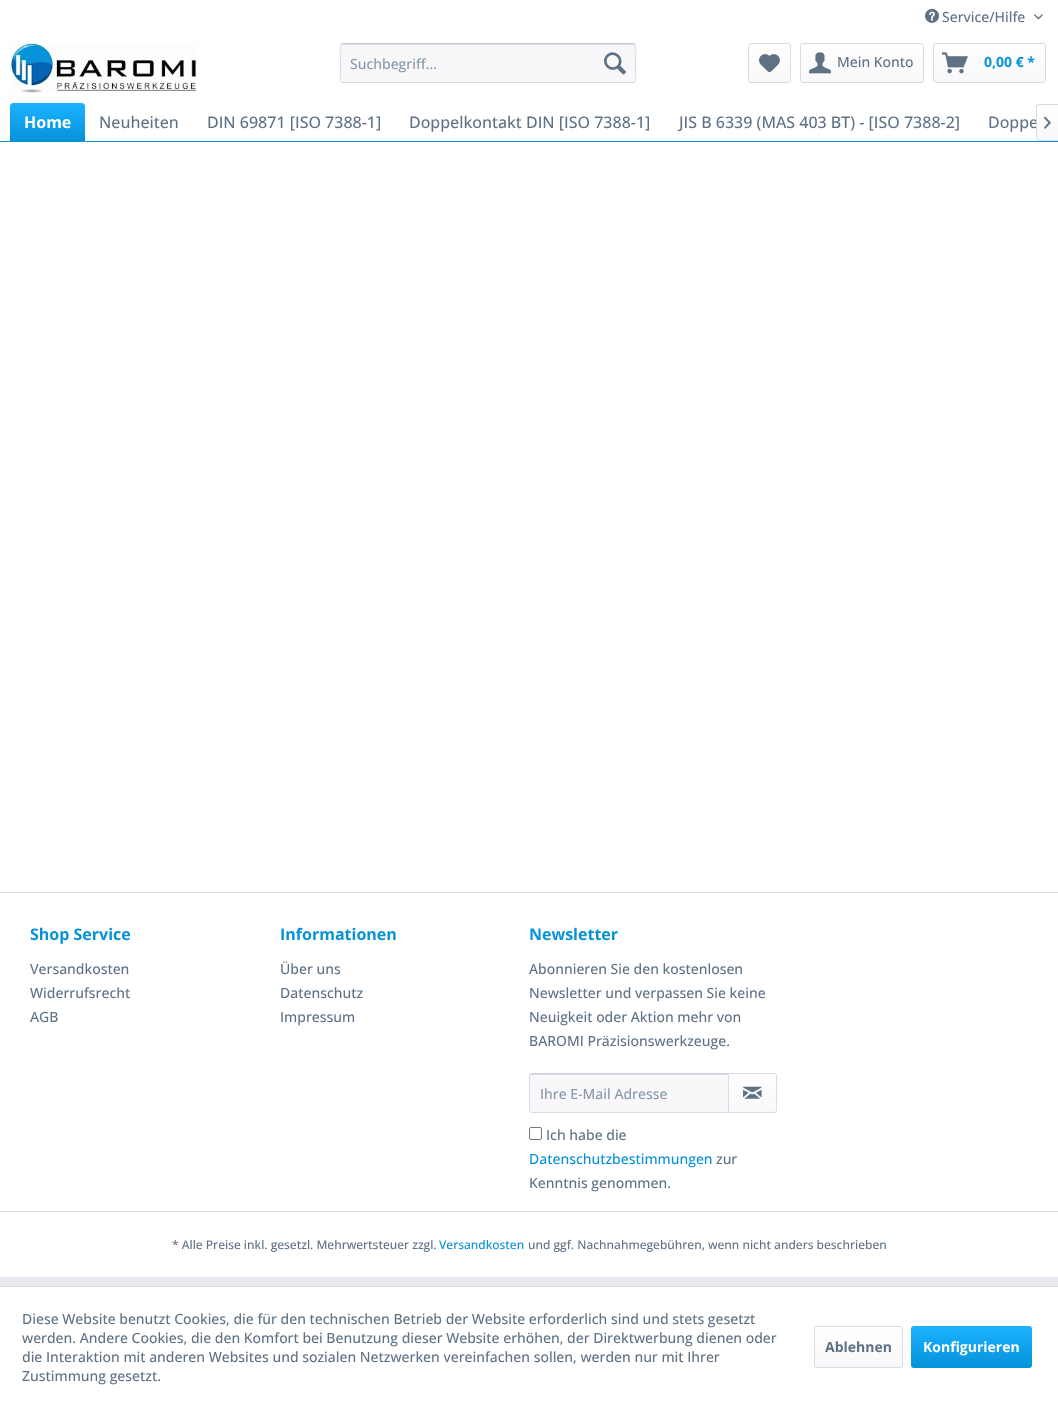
<svg xmlns="http://www.w3.org/2000/svg" width="1058" height="1407">
	<defs>
		<linearGradient id="g1" gradientUnits="userSpaceOnUse" x1="770" y1="44" x2="770" y2="82"><stop offset="0" stop-color="#FFFFFF" /><stop offset="1" stop-color="#F8F8FA" /></linearGradient>
		<linearGradient id="g2" gradientUnits="userSpaceOnUse" x1="862" y1="44" x2="862" y2="82"><stop offset="0" stop-color="#FFFFFF" /><stop offset="1" stop-color="#F8F8FA" /></linearGradient>
		<linearGradient id="g3" gradientUnits="userSpaceOnUse" x1="990" y1="44" x2="990" y2="82"><stop offset="0" stop-color="#FFFFFF" /><stop offset="1" stop-color="#F8F8FA" /></linearGradient>
		<linearGradient id="g4" gradientUnits="userSpaceOnUse" x1="48" y1="103" x2="48" y2="141"><stop offset="0" stop-color="#1CB3FF" /><stop offset="1" stop-color="#0592D9" /></linearGradient>
		<linearGradient id="g5" gradientUnits="userSpaceOnUse" x1="1048" y1="105" x2="1048" y2="140"><stop offset="0" stop-color="#FFFFFF" /><stop offset="1" stop-color="#F8F8FA" /></linearGradient>
		<linearGradient id="g6" gradientUnits="userSpaceOnUse" x1="753" y1="1074" x2="753" y2="1112"><stop offset="0" stop-color="#FFFFFF" /><stop offset="1" stop-color="#F8F8FA" /></linearGradient>
		<linearGradient id="g7" gradientUnits="userSpaceOnUse" x1="859" y1="1327" x2="859" y2="1367"><stop offset="0" stop-color="#FFFFFF" /><stop offset="1" stop-color="#F8F8FA" /></linearGradient>
		<linearGradient id="g8" gradientUnits="userSpaceOnUse" x1="972" y1="1326" x2="972" y2="1368"><stop offset="0" stop-color="#1CB3FF" /><stop offset="1" stop-color="#0592D9" /></linearGradient>
	</defs>
	<rect width="100%" height="100%" fill="#E9E9F0" />
	<rect x="0" y="0" width="1058" height="141" fill="#FFFFFF" />
	<image x="925" y="8" width="14" height="15" href="assets/img1.png" />
	<text x="942" y="22" font-family="Open Sans" font-size="14" font-weight="500" fill="#5F7285">Service/Hilfe</text>
	<image x="1034" y="14" width="9" height="6" href="assets/img2.png" />
	<image x="10" y="43" width="187" height="50" href="assets/img3.png" />
	<rect x="340" y="43" width="296" height="40" rx="3" fill="#F8F8FA" />
	<path d="M343 45H633C634 45 635 46 635 47C635 46 635 44 633 44H342L341 47C341 46 342 45 343 45Z" fill="#DADAE5" />
	<path d="M341 44L343 43.5H633L635 44" fill="none" stroke="#CBCBDB" />
	<path d="M635 44C636.5 46 635.5 60 635.5 63V74.5C635.5 76 637 82.5 633 82.5H343C339 82.5 340.5 76 340.5 74.5V63C340.5 60 339.5 46 341 44" fill="none" stroke="#DADAE5" />
	<text x="350" y="69" font-family="Open Sans" font-size="14" font-weight="500" fill="#8798A9">Suchbegriff...</text>
	<image x="604" y="52" width="22" height="23" href="assets/img4.png" />
	<rect x="749" y="44" width="41" height="38" rx="2" fill="url(#g1)" />
	<rect x="748.5" y="43.5" width="42" height="39" rx="2.5" fill="none" stroke="#DADAE5" />
	<image x="759" y="54" width="21" height="19" href="assets/img5.png" />
	<rect x="801" y="44" width="122" height="38" rx="2" fill="url(#g2)" />
	<rect x="800.5" y="43.5" width="123" height="39" rx="2.5" fill="none" stroke="#DADAE5" />
	<image x="809" y="52" width="22" height="22" href="assets/img6.png" />
	<text x="837" y="67" font-family="Open Sans" font-size="14" font-weight="500" fill="#5F7285">Mein Konto</text>
	<rect x="934" y="44" width="111" height="38" rx="2" fill="url(#g3)" />
	<rect x="933.5" y="43.5" width="112" height="39" rx="2.5" fill="none" stroke="#DADAE5" />
	<image x="942" y="52" width="26" height="22" href="assets/img7.png" />
	<text x="984" y="67" font-family="Open Sans" font-size="14" font-weight="700" fill="#0592D9">0,00 € *</text>
	<rect x="0" y="141" width="1058" height="1" fill="#0592D9" />
	<path d="M13 103H82C83.5 103 85 104.5 85 106V141H10V106C10 104.5 11.5 103 13 103Z" fill="url(#g4)" />
	<text x="24" y="128" font-family="Open Sans" font-size="16" font-weight="700" fill="#FFFFFF">Home</text>
	<g font-family="Open Sans" font-size="16" font-weight="500" fill="#5F7285">
		<text x="99" y="128">Neuheiten</text>
		<text x="207" y="128">DIN 69871 [ISO 7388-1]</text>
		<text x="409" y="128">Doppelkontakt DIN [ISO 7388-1]</text>
		<text x="679" y="128">JIS B 6339 (MAS 403 BT) - [ISO 7388-2]</text>
		<text x="988" y="128">Doppe</text>
	</g>
	<path d="M1039 105H1058V140H1039C1038 140 1037 139 1037 138V107C1037 106 1038 105 1039 105Z" fill="url(#g5)" />
	<path d="M1039 104H1058V141H1039C1037.5 141 1036 139.5 1036 138V107C1036 105.5 1037.5 104 1039 104ZM1039 105H1058V140H1039C1038 140 1037 139 1037 138V107C1037 106 1038 105 1039 105Z" fill="#DADAE5" fill-rule="evenodd" />
	<image x="1044" y="116" width="7" height="13" href="assets/img8.png" />
	<rect x="0" y="142" width="1058" height="750" fill="#FFFFFF" />
	<rect x="0" y="893" width="1058" height="384" fill="#FFFFFF" />
	<rect x="0" y="892" width="1058" height="1" fill="#DADAE5" />
	<rect x="0" y="1211" width="1058" height="1" fill="#DADAE5" />
	<text x="30" y="940" font-family="Open Sans" font-size="16" font-weight="700" fill="#0592D9">Shop Service</text>
	<g font-family="Open Sans" font-size="14" font-weight="500" fill="#5F7285">
		<text x="30" y="974">Versandkosten</text>
		<text x="30" y="998">Widerrufsrecht</text>
		<text x="30" y="1022">AGB</text>
	</g>
	<text x="280" y="940" font-family="Open Sans" font-size="16" font-weight="700" fill="#0592D9">Informationen</text>
	<g font-family="Open Sans" font-size="14" font-weight="500" fill="#5F7285">
		<text x="280" y="974">Über uns</text>
		<text x="280" y="998">Datenschutz</text>
		<text x="280" y="1022">Impressum</text>
	</g>
	<text x="529" y="940" font-family="Open Sans" font-size="16" font-weight="700" fill="#0592D9">Newsletter</text>
	<g font-family="Open Sans" font-size="14" font-weight="500" fill="#5F7285">
		<text x="529" y="974">Abonnieren Sie den kostenlosen</text>
		<text x="529" y="998">Newsletter und verpassen Sie keine</text>
		<text x="529" y="1022">Neuigkeit oder Aktion mehr von</text>
		<text x="529" y="1046">BAROMI Präzisionswerkzeuge.</text>
	</g>
	<path d="M532 1074H728V1112H532C531 1112 530 1111 530 1110V1076C530 1075 531 1074 532 1074Z" fill="#F8F8FA" />
	<path d="M532 1075H728V1074H532C530 1074 530 1076 530 1077C530 1076 531 1075 532 1075Z" fill="#DADAE5" />
	<path d="M532 1073L530 1074L531 1075L532 1074H728L729 1073Z" fill="#CBCBDB" />
	<path d="M729 1113L728 1112H532L531 1111L530 1112L532 1113Z" fill="#DADAE5" />
	<path d="M529 1076V1110C529 1111 529 1112 530 1112L530.5 1111.5L530 1110V1076L530.5 1074.5L530 1074C529 1074 529 1075 529 1076Z" fill="#DADAE5" />
	<text x="540" y="1099" font-family="Open Sans" font-size="14" font-weight="500" fill="#8798A9">Ihre E-Mail Adresse</text>
	<path d="M729 1074H774C775 1074 776 1075 776 1076V1110C776 1111 775 1112 774 1112H729Z" fill="url(#g6)" />
	<path d="M728.5 1073.5H774C775.5 1073.5 776.5 1074.5 776.5 1076V1110C776.5 1111.5 775.5 1112.5 774 1112.5H728.5Z" fill="none" stroke="#DADAE5" />
	<image x="743" y="1086" width="19" height="13" href="assets/img9.png" />
	<rect x="529.5" y="1127.5" width="12" height="12" rx="1.5" fill="none" stroke="#767676" />
	<text x="546" y="1140" font-family="Open Sans" font-size="14" font-weight="500" fill="#5F7285">Ich habe die</text>
	<text x="529" y="1164" font-family="Open Sans" font-size="14" font-weight="500" fill="#0592D9">Datenschutzbestimmungen</text>
	<g font-family="Open Sans" font-size="14" font-weight="500" fill="#5F7285">
		<text x="716" y="1164">zur</text>
		<text x="529" y="1188">Kenntnis genommen.</text>
	</g>
	<text x="172" y="1249" font-family="Open Sans" font-size="12" font-weight="500" fill="#5F7285">* Alle Preise inkl. gesetzl. Mehrwertsteuer zzgl.</text>
	<text x="439" y="1249" font-family="Open Sans" font-size="12" font-weight="500" fill="#0592D9">Versandkosten</text>
	<text x="528" y="1249" font-family="Open Sans" font-size="12" font-weight="500" fill="#5F7285">und ggf. Nachnahmegebühren, wenn nicht anders beschrieben</text>
	<rect x="0" y="1287" width="1058" height="120" fill="#FFFFFF" />
	<rect x="0" y="1286" width="1058" height="1" fill="#DADAE5" />
	<g font-family="Open Sans" font-size="14" font-weight="500" fill="#5F7285">
		<text x="22" y="1324">Diese Website benutzt Cookies, die für den technischen Betrieb der Website erforderlich sind und stets gesetzt</text>
		<text x="22" y="1343">werden. Andere Cookies, die den Komfort bei Benutzung dieser Website erhöhen, der Direktwerbung dienen oder</text>
		<text x="22" y="1362">die Interaktion mit anderen Websites und sozialen Netzwerken vereinfachen sollen, werden nur mit Ihrer</text>
		<text x="22" y="1381">Zustimmung gesetzt.</text>
	</g>
	<rect x="815" y="1327" width="87" height="40" rx="2" fill="url(#g7)" />
	<rect x="814.5" y="1326.5" width="88" height="41" rx="2.5" fill="none" stroke="#DADAE5" />
	<text x="825" y="1352" font-family="Open Sans" font-size="14" font-weight="700" fill="#5F7285">Ablehnen</text>
	<rect x="911" y="1326" width="121" height="42" rx="3" fill="url(#g8)" />
	<text x="923" y="1352" font-family="Open Sans" font-size="14" font-weight="700" fill="#FFFFFF">Konfigurieren</text>
</svg>
